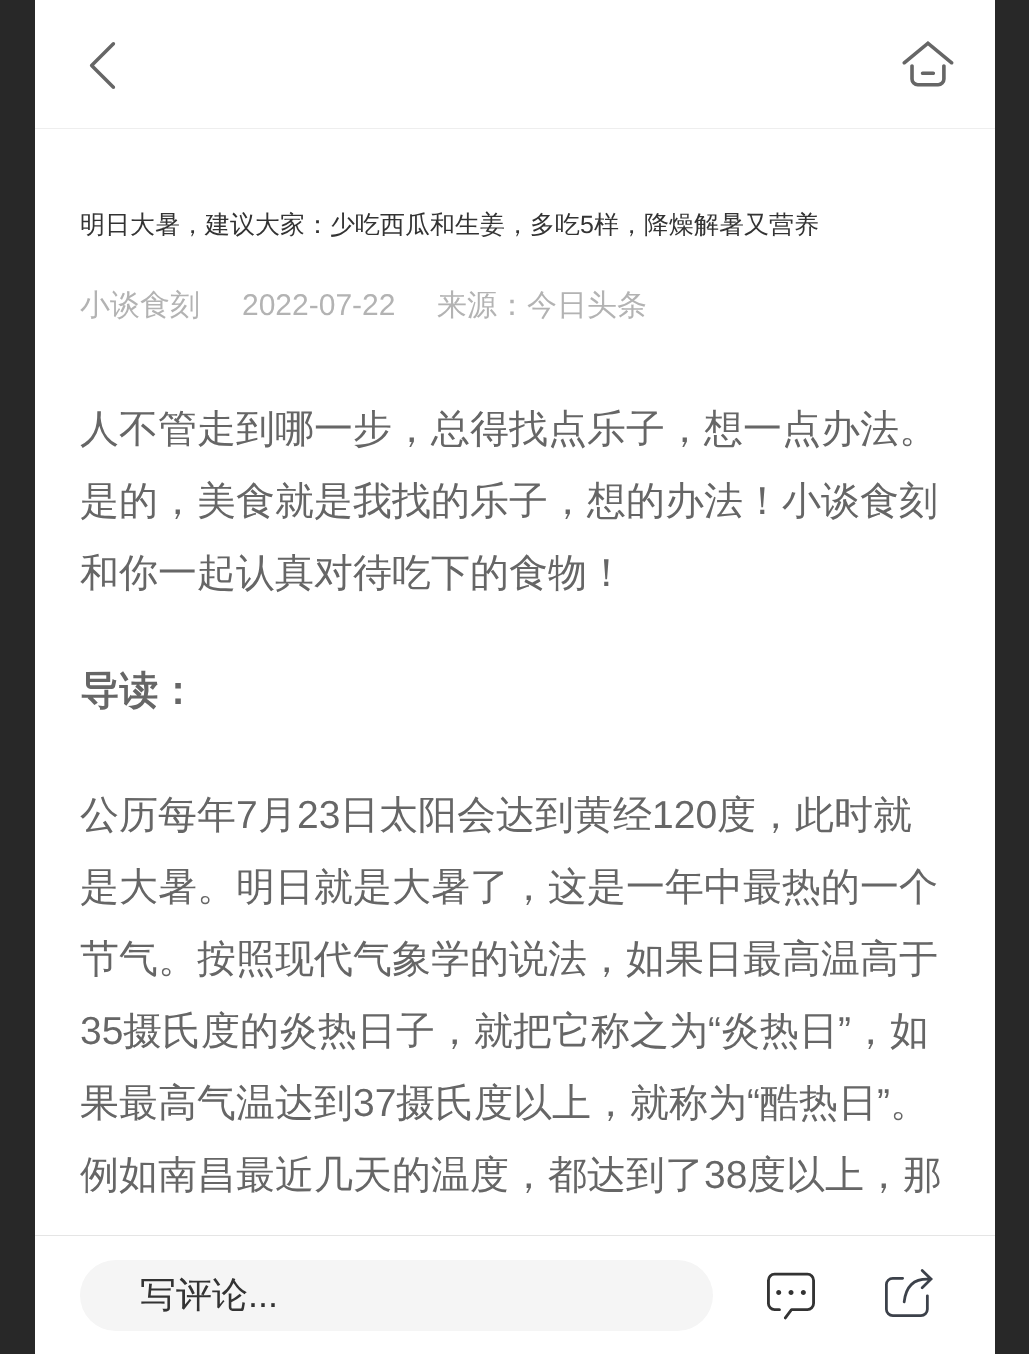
<svg xmlns="http://www.w3.org/2000/svg" width="1029" height="1354">
	<rect width="100%" height="100%" fill="#FFFFFF" />
	<rect x="0" y="0" width="35" height="1354" fill="#282828" />
	<rect x="35" y="128" width="960" height="1" fill="#EEEEEE" />
	<text x="79" y="85" font-family="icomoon" font-size="47" fill="#666666">򰊔</text>
	<text x="902" y="85" font-family="icomoon" font-size="51" fill="#666666">򰌓</text>
	<text x="80" y="233" font-family="WenQuanYi Zen Hei" font-size="25" font-weight="500" fill="#333333">明日大暑，建议大家：少吃西瓜和生姜，多吃</text>
	<text x="580" y="233" font-family="Liberation Sans" font-size="25" fill="#333333">5</text>
	<text x="594" y="233" font-family="WenQuanYi Zen Hei" font-size="25" font-weight="500" fill="#333333">样，降燥解暑又营养</text>
	<text x="80" y="315" font-family="WenQuanYi Zen Hei" font-size="30" font-weight="500" fill="#B3B3B3">小谈食刻</text>
	<text x="242" y="315" font-family="Liberation Sans" font-size="30" fill="#B3B3B3">2022-07-22</text>
	<text x="437" y="315" font-family="WenQuanYi Zen Hei" font-size="30" font-weight="500" fill="#B3B3B3">来源：今日头条</text>
	<g font-family="WenQuanYi Zen Hei" font-size="39" font-weight="500" fill="#666666">
		<text x="80" y="442">人不管走到哪一步，总得找点乐子，想一点办法。</text>
		<text x="80" y="514">是的，美食就是我找的乐子，想的办法！小谈食刻</text>
		<text x="80" y="586">和你一起认真对待吃下的食物！</text>
	</g>
	<text x="80" y="704" font-family="WenQuanYi Zen Hei" font-size="39" font-weight="700" fill="#666666">导读：</text>
	<text x="80" y="828" font-family="WenQuanYi Zen Hei" font-size="39" font-weight="500" fill="#666666">公历每年</text>
	<text x="236" y="828" font-family="Liberation Sans" font-size="39" fill="#666666">7</text>
	<text x="258" y="828" font-family="WenQuanYi Zen Hei" font-size="39" font-weight="500" fill="#666666">月</text>
	<text x="297" y="828" font-family="Liberation Sans" font-size="39" fill="#666666">23</text>
	<text x="340" y="828" font-family="WenQuanYi Zen Hei" font-size="39" font-weight="500" fill="#666666">日太阳会达到黄经</text>
	<text x="652" y="828" font-family="Liberation Sans" font-size="39" fill="#666666">120</text>
	<g font-family="WenQuanYi Zen Hei" font-size="39" font-weight="500" fill="#666666">
		<text x="717" y="828">度，此时就</text>
		<text x="80" y="900">是大暑。明日就是大暑了，这是一年中最热的一个</text>
		<text x="80" y="972">节气。按照现代气象学的说法，如果日最高温高于</text>
	</g>
	<text x="80" y="1044" font-family="Liberation Sans" font-size="39" fill="#666666">35</text>
	<text x="123" y="1044" font-family="WenQuanYi Zen Hei" font-size="39" font-weight="500" fill="#666666">摄氏度的炎热日子，就把它称之为</text>
	<text x="708" y="1044" font-family="Liberation Sans" font-size="39" fill="#666666">“</text>
	<text x="721" y="1044" font-family="WenQuanYi Zen Hei" font-size="39" font-weight="500" fill="#666666">炎热日</text>
	<text x="838" y="1044" font-family="Liberation Sans" font-size="39" fill="#666666">”</text>
	<g font-family="WenQuanYi Zen Hei" font-size="39" font-weight="500" fill="#666666">
		<text x="851" y="1044">，如</text>
		<text x="80" y="1116">果最高气温达到</text>
	</g>
	<text x="353" y="1116" font-family="Liberation Sans" font-size="39" fill="#666666">37</text>
	<text x="396" y="1116" font-family="WenQuanYi Zen Hei" font-size="39" font-weight="500" fill="#666666">摄氏度以上，就称为</text>
	<text x="747" y="1116" font-family="Liberation Sans" font-size="39" fill="#666666">“</text>
	<text x="760" y="1116" font-family="WenQuanYi Zen Hei" font-size="39" font-weight="500" fill="#666666">酷热日</text>
	<text x="877" y="1116" font-family="Liberation Sans" font-size="39" fill="#666666">”</text>
	<g font-family="WenQuanYi Zen Hei" font-size="39" font-weight="500" fill="#666666">
		<text x="890" y="1116">。</text>
		<text x="80" y="1188">例如南昌最近几天的温度，都达到了</text>
	</g>
	<text x="704" y="1188" font-family="Liberation Sans" font-size="39" fill="#666666">38</text>
	<text x="747" y="1188" font-family="WenQuanYi Zen Hei" font-size="39" font-weight="500" fill="#666666">度以上，那</text>
	<rect x="35" y="1235" width="960" height="1" fill="#E5E5E5" />
	<rect x="80" y="1260" width="633" height="71" rx="35.5" fill="#F5F5F5" />
	<text x="140" y="1307" font-family="WenQuanYi Zen Hei" font-size="36" font-weight="500" fill="#333333">写评论</text>
	<text x="248" y="1307" font-family="Liberation Sans" font-size="36" fill="#333333">...</text>
	<text x="767" y="1316" font-family="icomoon" font-size="48" fill="#333333">򰌇</text>
	<text x="885" y="1313" font-family="icomoon" font-size="48" fill="#3C414A">򰌐</text>
	<rect x="995" y="0" width="34" height="1354" fill="#282828" />
</svg>
